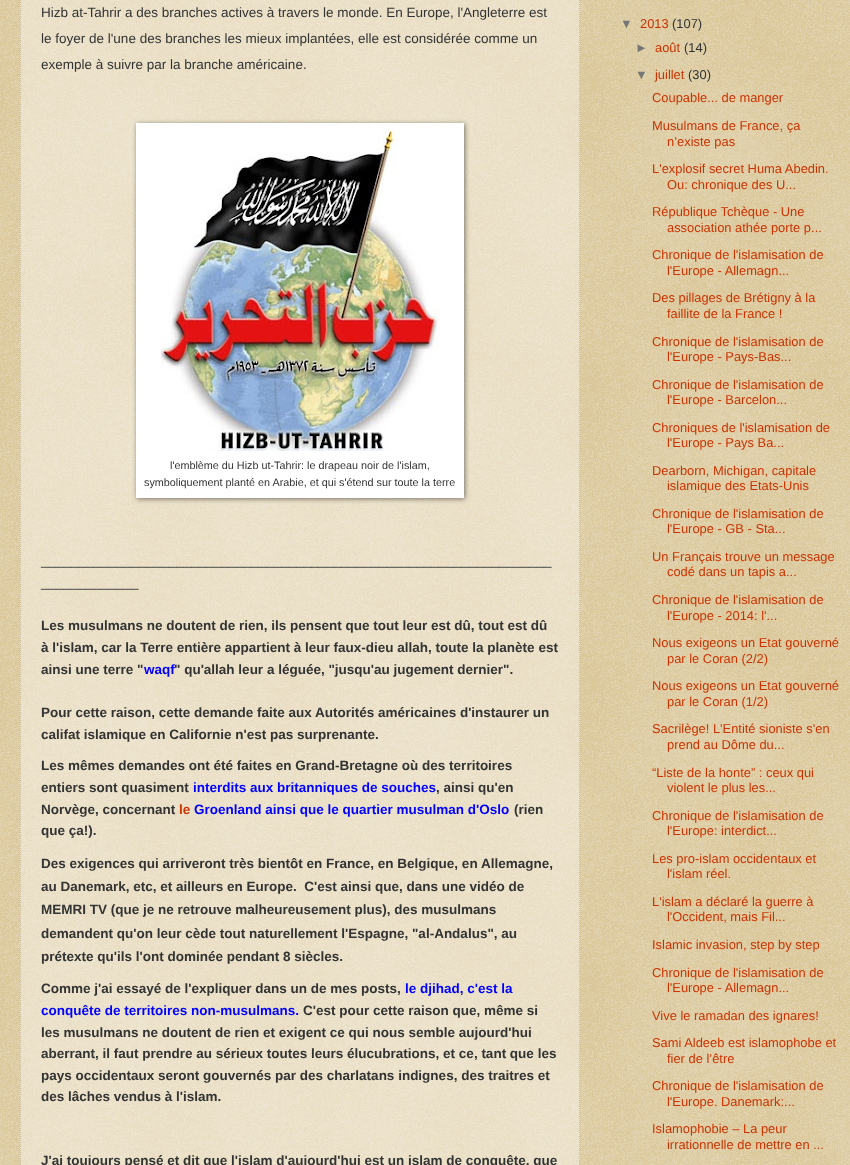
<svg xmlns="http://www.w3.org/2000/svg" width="850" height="1165">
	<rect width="100%" height="100%" fill="#C0A154" />
	<image x="0" y="0" width="850" height="1165" href="assets/img1.png" />
	<rect x="20" y="0" width="560" height="1165" fill="#FFFFFF" fill-opacity="0.4" />
	<path d="M579.5-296V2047" fill="none" stroke="#CCBB99" stroke-dasharray="1 1" />
	<path d="M20.5-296V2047" fill="none" stroke="#CCBB99" stroke-dasharray="1 1" />
	<g font-family="Liberation Sans" font-size="13.5" fill="#333333">
		<text x="41" y="17">Hizb at-Tahrir a des branches actives à travers le monde. En Europe, l'Angleterre est</text>
		<text x="41" y="43">le foyer de l'une des branches les mieux implantées, elle est considérée comme un</text>
		<text x="41" y="69">exemple à suivre par la branche américaine.</text>
	</g>
	<rect x="137" y="124" width="328" height="375" fill="#000000" fill-opacity="0.5" filter="blur(2.5px)" />
	<rect x="136" y="123" width="328" height="375" fill="#FFFFFF" />
	<image x="161" y="131" width="277" height="320" href="assets/img2.png" />
	<g font-family="Liberation Sans" font-size="10.8" fill="#333333">
		<text x="170" y="469">l'emblème du Hizb ut-Tahrir: le drapeau noir de l'islam,</text>
		<text x="144" y="486">symboliquement planté en Arabie, et qui s'étend sur toute la terre</text>
	</g>
	<g font-family="Liberation Sans" font-size="13.5" fill="#333333">
		<text x="41" y="565">____________________________________________________________________</text>
		<text x="41" y="587">_____________</text>
	</g>
	<g font-family="Liberation Sans" font-size="13.5" font-weight="700" fill="#333333">
		<text x="41" y="630">Les musulmans ne doutent de rien, ils pensent que tout leur est dû, tout est dû</text>
		<text x="41" y="652">à l'islam, car la Terre entière appartient à leur faux-dieu allah, toute la planète est</text>
		<text x="41" y="674">ainsi une terre "</text>
	</g>
	<text x="144" y="674" font-family="Liberation Sans" font-size="13.5" font-weight="700" fill="#0000FF">waqf</text>
	<g font-family="Liberation Sans" font-size="13.5" font-weight="700" fill="#333333">
		<text x="174" y="674">" qu'allah leur a léguée, "jusqu'au jugement dernier".</text>
		<text x="41" y="717">Pour cette raison, cette demande faite aux Autorités américaines d'instaurer un</text>
		<text x="41" y="739">califat islamique en Californie n'est pas surprenante.</text>
		<text x="41" y="770">Les mêmes demandes ont été faites en Grand-Bretagne où des territoires</text>
		<text x="41" y="792">entiers sont quasiment</text>
	</g>
	<text x="193" y="792" font-family="Liberation Sans" font-size="13.5" font-weight="700" fill="#0000FF">interdits aux britanniques de souches</text>
	<g font-family="Liberation Sans" font-size="13.5" font-weight="700" fill="#333333">
		<text x="436" y="792">, ainsi qu'en</text>
		<text x="41" y="814">Norvège, concernant</text>
	</g>
	<text x="179" y="814" font-family="Liberation Sans" font-size="13.5" font-weight="700" fill="#CC3300">le</text>
	<text x="194" y="814" font-family="Liberation Sans" font-size="13.5" font-weight="700" fill="#0000FF">Groenland ainsi que le quartier musulman d'Oslo</text>
	<g font-family="Liberation Sans" font-size="13.5" font-weight="700" fill="#333333">
		<text x="514" y="814">(rien</text>
		<text x="41" y="835">que ça!).</text>
		<text x="41" y="868">Des exigences qui arriveront très bientôt en France, en Belgique, en Allemagne,</text>
		<text x="41" y="891" xml:space="preserve">au Danemark, etc, et ailleurs en Europe.  C'est ainsi que, dans une vidéo de</text>
		<text x="41" y="914">MEMRI TV (que je ne retrouve malheureusement plus), des musulmans</text>
		<text x="41" y="938">demandent qu'on leur cède tout naturellement l'Espagne, "al-Andalus", au</text>
		<text x="41" y="961">prétexte qu'ils l'ont dominée pendant 8 siècles.</text>
		<text x="41" y="993">Comme j'ai essayé de l'expliquer dans un de mes posts,</text>
	</g>
	<g font-family="Liberation Sans" font-size="13.5" font-weight="700" fill="#0000FF">
		<text x="405" y="993">le djihad, c'est la</text>
		<text x="41" y="1015">conquête de territoires non-musulmans.</text>
	</g>
	<g font-family="Liberation Sans" font-size="13.5" font-weight="700" fill="#333333">
		<text x="303" y="1015">C'est pour cette raison que, même si</text>
		<text x="41" y="1037">les musulmans ne doutent de rien et exigent ce qui nous semble aujourd'hui</text>
		<text x="41" y="1058">aberrant, il faut prendre au sérieux toutes leurs élucubrations, et ce, tant que les</text>
		<text x="41" y="1080">pays occidentaux seront gouvernés par des charlatans indignes, des traitres et</text>
		<text x="41" y="1101">des lâches vendus à l'islam.</text>
		<text x="41" y="1165">J'ai toujours pensé et dit que l'islam d'aujourd'hui est un islam de conquête, que</text>
	</g>
	<text x="620" y="28" font-family="Liberation Sans" font-size="12.9" fill="#777777">▼</text>
	<text x="640" y="28" font-family="Liberation Sans" font-size="12.9" fill="#CC3300">2013</text>
	<text x="672" y="28" font-family="Liberation Sans" font-size="12.9" fill="#333333">(107)</text>
	<text x="635" y="52" font-family="Liberation Sans" font-size="12.9" fill="#777777">►</text>
	<text x="655" y="52" font-family="Liberation Sans" font-size="12.9" fill="#CC3300">août</text>
	<text x="684" y="52" font-family="Liberation Sans" font-size="12.9" fill="#333333">(14)</text>
	<text x="635" y="79" font-family="Liberation Sans" font-size="12.9" fill="#777777">▼</text>
	<text x="655" y="79" font-family="Liberation Sans" font-size="12.9" fill="#CC3300">juillet</text>
	<text x="688" y="79" font-family="Liberation Sans" font-size="12.9" fill="#333333">(30)</text>
	<g font-family="Liberation Sans" font-size="12.9" fill="#CC3300">
		<text x="652" y="102">Coupable... de manger</text>
		<text x="652" y="130">Musulmans de France, ça</text>
		<text x="667" y="146">n’existe pas</text>
		<text x="652" y="173">L'explosif secret Huma Abedin.</text>
		<text x="667" y="189">Ou: chronique des U...</text>
		<text x="652" y="216">République Tchèque - Une</text>
		<text x="667" y="232">association athée porte p...</text>
		<text x="652" y="259">Chronique de l'islamisation de</text>
		<text x="667" y="275">l'Europe - Allemagn...</text>
		<text x="652" y="302">Des pillages de Brétigny à la</text>
		<text x="667" y="318">faillite de la France !</text>
		<text x="652" y="346">Chronique de l'islamisation de</text>
		<text x="667" y="361">l'Europe - Pays-Bas...</text>
		<text x="652" y="389">Chronique de l'islamisation de</text>
		<text x="667" y="404">l'Europe - Barcelon...</text>
		<text x="652" y="432">Chroniques de l'islamisation de</text>
		<text x="667" y="447">l'Europe - Pays Ba...</text>
		<text x="652" y="475">Dearborn, Michigan, capitale</text>
		<text x="667" y="490">islamique des Etats-Unis</text>
		<text x="652" y="518">Chronique de l'islamisation de</text>
		<text x="667" y="533">l'Europe - GB - Sta...</text>
		<text x="652" y="561">Un Français trouve un message</text>
		<text x="667" y="576">codé dans un tapis a...</text>
		<text x="652" y="604">Chronique de l'islamisation de</text>
		<text x="667" y="620">l'Europe - 2014: l'...</text>
		<text x="652" y="647">Nous exigeons un Etat gouverné</text>
		<text x="667" y="663">par le Coran (2/2)</text>
		<text x="652" y="690">Nous exigeons un Etat gouverné</text>
		<text x="667" y="706">par le Coran (1/2)</text>
		<text x="652" y="733">Sacrilège! L'Entité sioniste s'en</text>
		<text x="667" y="749">prend au Dôme du...</text>
		<text x="652" y="777">“Liste de la honte” : ceux qui</text>
		<text x="667" y="792">violent le plus les...</text>
		<text x="652" y="820">Chronique de l'islamisation de</text>
		<text x="667" y="835">l'Europe: interdict...</text>
		<text x="652" y="863">Les pro-islam occidentaux et</text>
		<text x="667" y="878">l'islam réel.</text>
		<text x="652" y="906">L'islam a déclaré la guerre à</text>
		<text x="667" y="921">l'Occident, mais Fil...</text>
		<text x="652" y="949">Islamic invasion, step by step</text>
		<text x="652" y="977">Chronique de l'islamisation de</text>
		<text x="667" y="992">l'Europe - Allemagn...</text>
		<text x="652" y="1020">Vive le ramadan des ignares!</text>
		<text x="652" y="1047">Sami Aldeeb est islamophobe et</text>
		<text x="667" y="1063">fier de l’être</text>
		<text x="652" y="1090">Chronique de l'islamisation de</text>
		<text x="667" y="1106">l'Europe. Danemark:...</text>
		<text x="652" y="1133">Islamophobie – La peur</text>
		<text x="667" y="1149">irrationnelle de mettre en ...</text>
	</g>
</svg>
